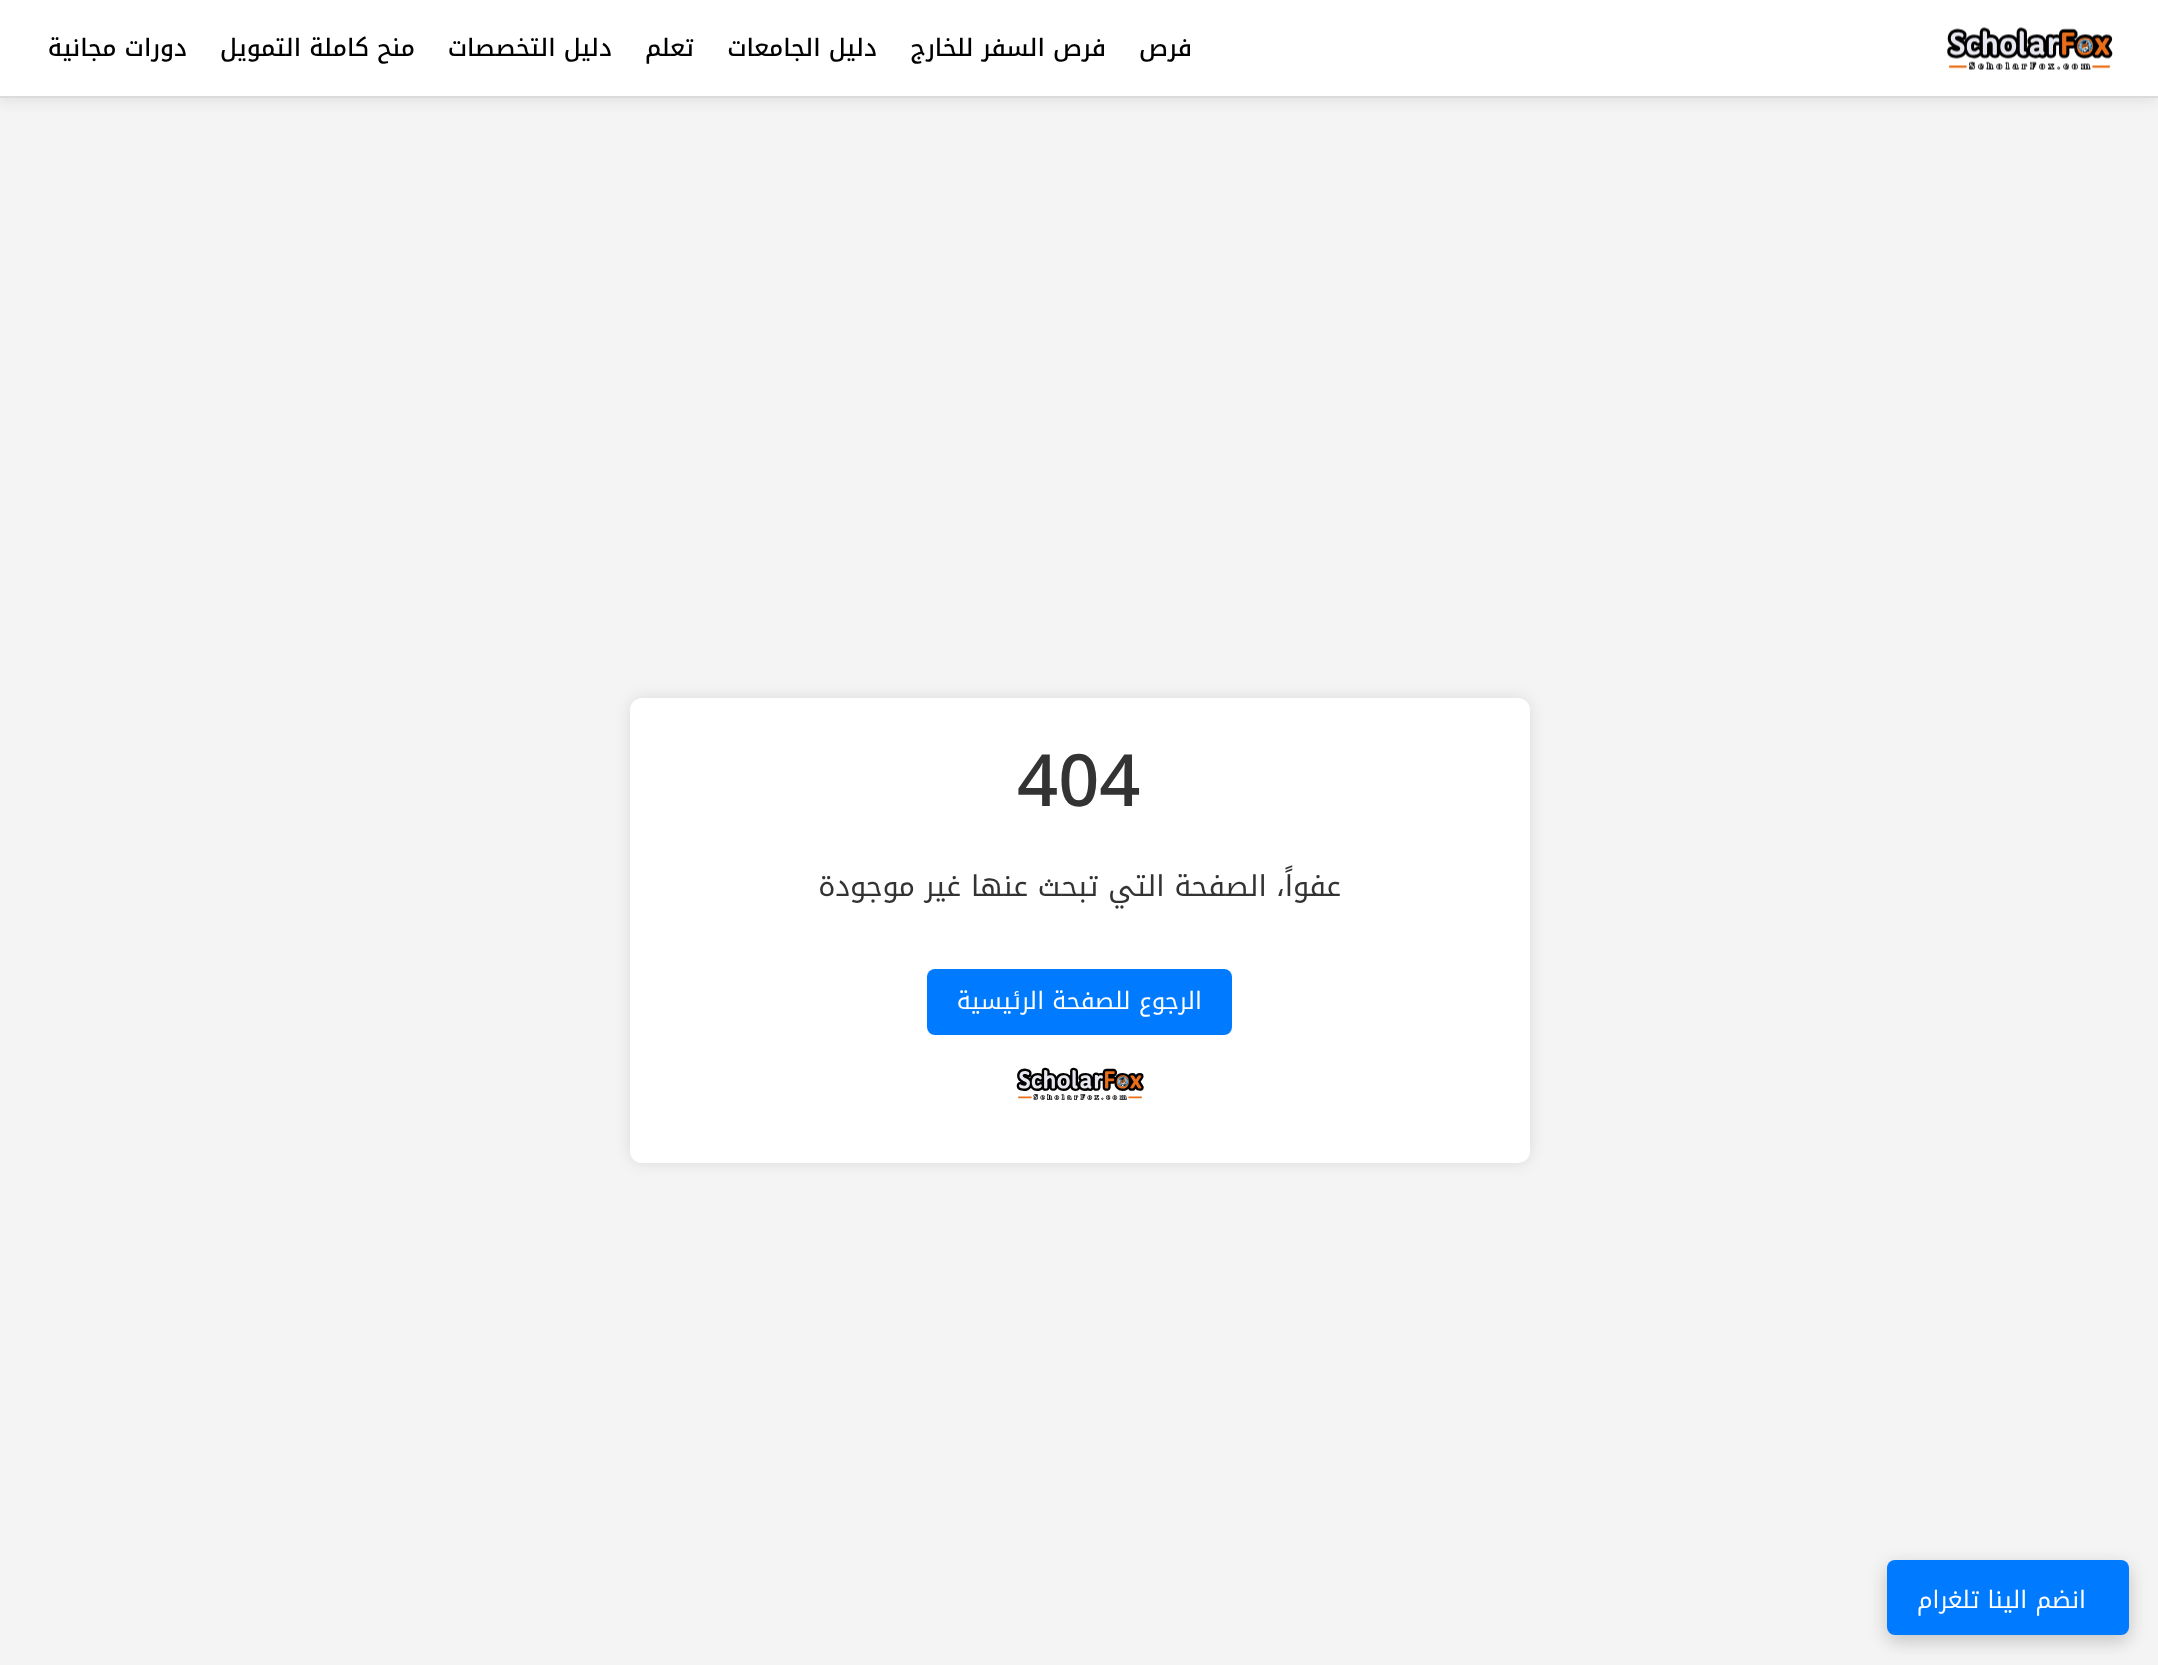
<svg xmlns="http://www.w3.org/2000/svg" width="2158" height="1665">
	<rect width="100%" height="100%" fill="#F4F4F4" />
	<rect x="-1" y="2" width="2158" height="97" fill="#797979" fill-opacity="0.2" filter="blur(7.5px)" />
	<rect x="0" y="0" width="2158" height="96" fill="#FFFFFF" />
	<rect x="0" y="96" width="2158" height="2" fill="#DBDBDB" />
	<image x="1947" y="27" width="166" height="43" href="assets/img1.png" />
	<g font-family="Noto Kufi Arabic" font-size="24" font-weight="500" direction="rtl" fill="#000000">
		<text x="1192" y="56">فرص</text>
		<text x="1106" y="56">فرص السفر للخارج</text>
		<text x="877" y="56">دليل الجامعات</text>
		<text x="694" y="56">تعلم</text>
		<text x="612" y="56">دليل التخصصات</text>
		<text x="415" y="56">منح كاملة التمويل</text>
		<text x="187" y="56">دورات مجانية</text>
	</g>
	<rect x="630" y="698" width="900" height="465" rx="12" fill="#000000" fill-opacity="0.1" filter="blur(7.5px)" />
	<rect x="630" y="698" width="900" height="465" rx="12" fill="#FFFFFF" />
	<text x="1017" y="806" font-family="Noto Kufi Arabic" font-size="72" font-weight="500" fill="#333333">404</text>
	<text x="1341" y="896" font-family="Noto Kufi Arabic" font-size="28.75" direction="rtl" fill="#333333">عفواً، الصفحة التي تبحث عنها غير موجودة</text>
	<rect x="927" y="969" width="305" height="66" rx="8" fill="#007BFF" />
	<text x="1202" y="1009" font-family="Noto Kufi Arabic" font-size="24" direction="rtl" fill="#FFFFFF">الرجوع للصفحة الرئيسية</text>
	<image x="1016" y="1067" width="128" height="33" href="assets/img2.png" />
	<rect x="1887" y="1566" width="242" height="75" rx="8" fill="#000000" fill-opacity="0.2" filter="blur(9px)" />
	<rect x="1887" y="1560" width="242" height="75" rx="8" fill="#007BFF" />
	<text x="2086" y="1608" font-family="Noto Kufi Arabic" font-size="24" direction="rtl" fill="#FFFFFF">انضم الينا تلغرام</text>
</svg>
